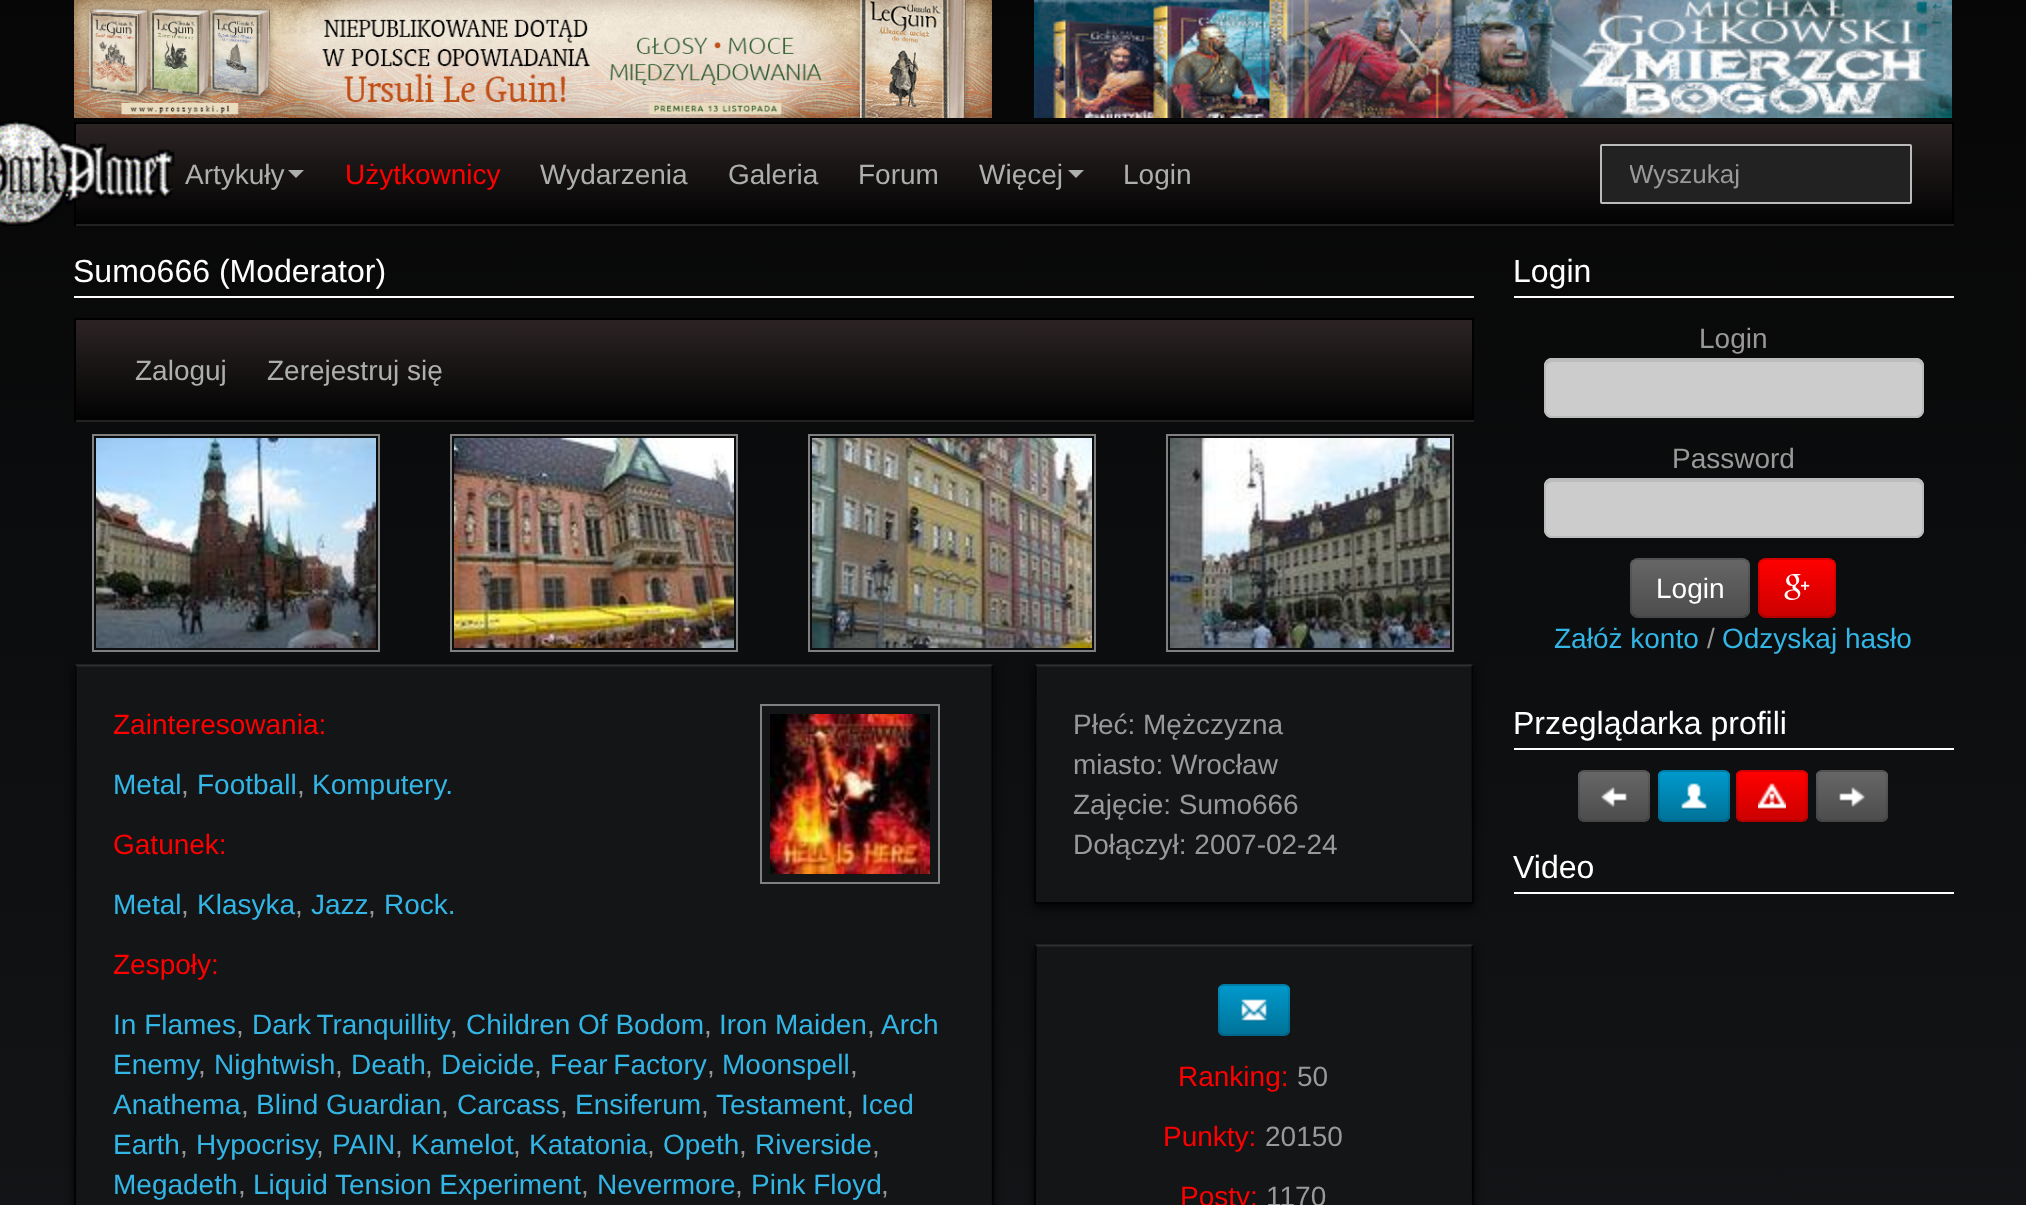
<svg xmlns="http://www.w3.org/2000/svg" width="2026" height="1205">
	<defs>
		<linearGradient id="g1" gradientUnits="userSpaceOnUse" x1="1013" y1="0" x2="1013" y2="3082"><stop offset="0" stop-color="#060606" /><stop offset="1" stop-color="#252A30" /></linearGradient>
		<linearGradient id="g2" gradientUnits="userSpaceOnUse" x1="1014" y1="124" x2="1014" y2="224"><stop offset="0" stop-color="#2C2424" /><stop offset="1" stop-color="#020202" /></linearGradient>
		<clipPath id="clip1"><rect x="1630" y="160" width="252" height="30" /></clipPath>
		<linearGradient id="g3" gradientUnits="userSpaceOnUse" x1="774" y1="320" x2="774" y2="420"><stop offset="0" stop-color="#2C2424" /><stop offset="1" stop-color="#020202" /></linearGradient>
		<clipPath id="clip2"><rect x="1218" y="984" width="72" height="52" rx="6" /></clipPath>
		<linearGradient id="g4" gradientUnits="userSpaceOnUse" x1="1254" y1="986" x2="1254" y2="1034"><stop offset="0" stop-color="#0099CC" /><stop offset="1" stop-color="#007399" /></linearGradient>
		<clipPath id="clip3"><rect x="1630" y="558" width="120" height="60" rx="8" /></clipPath>
		<linearGradient id="g5" gradientUnits="userSpaceOnUse" x1="1690" y1="560" x2="1690" y2="616"><stop offset="0" stop-color="#666666" /><stop offset="1" stop-color="#4D4D4D" /></linearGradient>
		<clipPath id="clip4"><rect x="1758" y="558" width="78" height="60" rx="8" /></clipPath>
		<linearGradient id="g6" gradientUnits="userSpaceOnUse" x1="1797" y1="560" x2="1797" y2="616"><stop offset="0" stop-color="#FF0000" /><stop offset="1" stop-color="#CC0000" /></linearGradient>
		<clipPath id="clip5"><rect x="1578" y="770" width="72" height="52" rx="6" /></clipPath>
		<linearGradient id="g7" gradientUnits="userSpaceOnUse" x1="1614" y1="772" x2="1614" y2="820"><stop offset="0" stop-color="#666666" /><stop offset="1" stop-color="#4D4D4D" /></linearGradient>
		<clipPath id="clip6"><rect x="1658" y="770" width="72" height="52" rx="6" /></clipPath>
		<linearGradient id="g8" gradientUnits="userSpaceOnUse" x1="1694" y1="772" x2="1694" y2="820"><stop offset="0" stop-color="#0099CC" /><stop offset="1" stop-color="#007399" /></linearGradient>
		<clipPath id="clip7"><rect x="1736" y="770" width="72" height="52" rx="6" /></clipPath>
		<linearGradient id="g9" gradientUnits="userSpaceOnUse" x1="1772" y1="772" x2="1772" y2="820"><stop offset="0" stop-color="#FF0000" /><stop offset="1" stop-color="#CC0000" /></linearGradient>
		<clipPath id="clip8"><rect x="1816" y="770" width="72" height="52" rx="6" /></clipPath>
		<linearGradient id="g10" gradientUnits="userSpaceOnUse" x1="1852" y1="772" x2="1852" y2="820"><stop offset="0" stop-color="#666666" /><stop offset="1" stop-color="#4D4D4D" /></linearGradient>
	</defs>
	<rect width="100%" height="100%" fill="#FFFFFF" />
	<rect x="0" y="0" width="2026" height="1205" fill="url(#g1)" />
	<image x="74" y="0" width="918" height="118" href="assets/img1.png" />
	<image x="1034" y="0" width="918" height="118" href="assets/img2.png" />
	<rect x="76" y="124" width="1876" height="100" fill="url(#g2)" />
	<rect x="74" y="122" width="1880" height="2" fill="#000000" />
	<rect x="1952" y="122" width="2" height="104" fill="#000000" />
	<rect x="74" y="224" width="1880" height="2" fill="#222222" />
	<rect x="74" y="122" width="2" height="104" fill="#000000" />
	<image x="0" y="120" width="175" height="106" href="assets/img3.png" />
	<text x="185" y="184" font-family="Liberation Sans" font-size="28" fill="#ADAFAE">Artykuły</text>
	<path d="M288 170H304L296 178Z" fill="#ADAFAE" />
	<text x="345" y="184" font-family="Liberation Sans" font-size="28" fill="#FF0000">Użytkownicy</text>
	<g font-family="Liberation Sans" font-size="28" fill="#ADAFAE">
		<text x="540" y="184">Wydarzenia</text>
		<text x="728" y="184">Galeria</text>
		<text x="858" y="184">Forum</text>
		<text x="979" y="184">Więcej</text>
	</g>
	<path d="M1068 170H1084L1076 178Z" fill="#ADAFAE" />
	<text x="1123" y="184" font-family="Liberation Sans" font-size="28" fill="#ADAFAE">Login</text>
	<rect x="1600" y="144" width="312" height="60" rx="2" fill="#222222" />
	<rect x="1602" y="146" width="308" height="2" fill="#1F1F1F" />
	<rect x="1601" y="145" width="310" height="58" rx="1" fill="none" stroke="#BBBBBB" stroke-width="2" />
	<g clip-path="url(#clip1)">
		<text x="1629" y="183" font-family="Liberation Sans" font-size="26" fill="#999999">Wyszukaj</text>
	</g>
	<rect x="74" y="296" width="1400" height="2" fill="#FFFFFF" />
	<text x="73" y="282" font-family="Liberation Sans" font-size="32" fill="#FFFFFF">Sumo666 (Moderator)</text>
	<rect x="76" y="320" width="1396" height="100" fill="url(#g3)" />
	<rect x="74" y="318" width="1400" height="2" fill="#000000" />
	<rect x="1472" y="318" width="2" height="104" fill="#000000" />
	<rect x="74" y="420" width="1400" height="2" fill="#222222" />
	<rect x="74" y="318" width="2" height="104" fill="#000000" />
	<g font-family="Liberation Sans" font-size="28" fill="#ADAFAE">
		<text x="135" y="380">Zaloguj</text>
		<text x="267" y="380">Zerejestruj się</text>
	</g>
	<rect x="93" y="435" width="286" height="216" fill="none" stroke="#808080" stroke-width="2" />
	<image x="96" y="438" width="280" height="210" href="assets/img4.png" />
	<rect x="451" y="435" width="286" height="216" fill="none" stroke="#808080" stroke-width="2" />
	<image x="454" y="438" width="280" height="210" href="assets/img5.png" />
	<rect x="809" y="435" width="286" height="216" fill="none" stroke="#808080" stroke-width="2" />
	<image x="812" y="438" width="280" height="210" href="assets/img6.png" />
	<rect x="1167" y="435" width="286" height="216" fill="none" stroke="#808080" stroke-width="2" />
	<image x="1170" y="438" width="280" height="210" href="assets/img7.png" />
	<rect x="74" y="668" width="920" height="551" rx="2" fill="#000000" fill-opacity="0.8" filter="blur(4px)" />
	<rect x="74" y="664" width="920" height="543" rx="2" fill="#131517" />
	<path d="M75.5 665.5H992.5" fill="none" stroke="#2F2F2F" stroke-width="2" />
	<path d="M992.5 665.5L993 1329.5C993 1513.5 1036.5 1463 839.5 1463H228.5C31.5 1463 75 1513.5 75 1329.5L75.5 665.5" fill="none" stroke="#030303" stroke-width="2" />
	<text x="113" y="734" font-family="Liberation Sans" font-size="28" fill="#FF0000">Zainteresowania:</text>
	<rect x="761" y="705" width="178" height="178" fill="none" stroke="#808080" stroke-width="2" />
	<image x="770" y="714" width="160" height="160" href="assets/img8.png" />
	<text x="113" y="794" font-family="Liberation Sans" font-size="28" fill="#33B5E5">Metal</text>
	<text x="181" y="794" font-family="Liberation Sans" font-size="28" fill="#999999">,</text>
	<text x="197" y="794" font-family="Liberation Sans" font-size="28" fill="#33B5E5">Football</text>
	<text x="297" y="794" font-family="Liberation Sans" font-size="28" fill="#999999">,</text>
	<text x="312" y="794" font-family="Liberation Sans" font-size="28" fill="#33B5E5">Komputery.</text>
	<text x="113" y="854" font-family="Liberation Sans" font-size="28" fill="#FF0000">Gatunek:</text>
	<text x="113" y="914" font-family="Liberation Sans" font-size="28" fill="#33B5E5">Metal</text>
	<text x="181" y="914" font-family="Liberation Sans" font-size="28" fill="#999999">,</text>
	<text x="197" y="914" font-family="Liberation Sans" font-size="28" fill="#33B5E5">Klasyka</text>
	<text x="295" y="914" font-family="Liberation Sans" font-size="28" fill="#999999">,</text>
	<text x="311" y="914" font-family="Liberation Sans" font-size="28" fill="#33B5E5">Jazz</text>
	<text x="368" y="914" font-family="Liberation Sans" font-size="28" fill="#999999">,</text>
	<text x="384" y="914" font-family="Liberation Sans" font-size="28" fill="#33B5E5">Rock.</text>
	<text x="113" y="974" font-family="Liberation Sans" font-size="28" fill="#FF0000">Zespoły:</text>
	<text x="113" y="1034" font-family="Liberation Sans" font-size="28" fill="#33B5E5">In Flames</text>
	<text x="236" y="1034" font-family="Liberation Sans" font-size="28" fill="#999999">,</text>
	<text x="252" y="1034" word-spacing="-2" font-family="Liberation Sans" font-size="28" fill="#33B5E5">Dark Tranquillity</text>
	<text x="450" y="1034" font-family="Liberation Sans" font-size="28" fill="#999999">,</text>
	<text x="466" y="1034" font-family="Liberation Sans" font-size="28" fill="#33B5E5">Children Of Bodom</text>
	<text x="704" y="1034" font-family="Liberation Sans" font-size="28" fill="#999999">,</text>
	<text x="719" y="1034" font-family="Liberation Sans" font-size="28" fill="#33B5E5">Iron Maiden</text>
	<text x="867" y="1034" font-family="Liberation Sans" font-size="28" fill="#999999">,</text>
	<g font-family="Liberation Sans" font-size="28" fill="#33B5E5">
		<text x="881" y="1034">Arch</text>
		<text x="113" y="1074">Enemy</text>
	</g>
	<text x="198" y="1074" font-family="Liberation Sans" font-size="28" fill="#999999">,</text>
	<text x="214" y="1074" font-family="Liberation Sans" font-size="28" fill="#33B5E5">Nightwish</text>
	<text x="335" y="1074" font-family="Liberation Sans" font-size="28" fill="#999999">,</text>
	<text x="351" y="1074" font-family="Liberation Sans" font-size="28" fill="#33B5E5">Death</text>
	<text x="425" y="1074" font-family="Liberation Sans" font-size="28" fill="#999999">,</text>
	<text x="441" y="1074" font-family="Liberation Sans" font-size="28" fill="#33B5E5">Deicide</text>
	<text x="534" y="1074" font-family="Liberation Sans" font-size="28" fill="#999999">,</text>
	<text x="550" y="1074" word-spacing="-2" font-family="Liberation Sans" font-size="28" fill="#33B5E5">Fear Factory</text>
	<text x="707" y="1074" font-family="Liberation Sans" font-size="28" fill="#999999">,</text>
	<text x="722" y="1074" font-family="Liberation Sans" font-size="28" fill="#33B5E5">Moonspell</text>
	<text x="850" y="1074" font-family="Liberation Sans" font-size="28" fill="#999999">,</text>
	<text x="113" y="1114" font-family="Liberation Sans" font-size="28" fill="#33B5E5">Anathema</text>
	<text x="241" y="1114" font-family="Liberation Sans" font-size="28" fill="#999999">,</text>
	<text x="256" y="1114" font-family="Liberation Sans" font-size="28" fill="#33B5E5">Blind Guardian</text>
	<text x="441" y="1114" font-family="Liberation Sans" font-size="28" fill="#999999">,</text>
	<text x="457" y="1114" font-family="Liberation Sans" font-size="28" fill="#33B5E5">Carcass</text>
	<text x="560" y="1114" font-family="Liberation Sans" font-size="28" fill="#999999">,</text>
	<text x="575" y="1114" font-family="Liberation Sans" font-size="28" fill="#33B5E5">Ensiferum</text>
	<text x="701" y="1114" font-family="Liberation Sans" font-size="28" fill="#999999">,</text>
	<text x="716" y="1114" font-family="Liberation Sans" font-size="28" fill="#33B5E5">Testament</text>
	<text x="846" y="1114" font-family="Liberation Sans" font-size="28" fill="#999999">,</text>
	<g font-family="Liberation Sans" font-size="28" fill="#33B5E5">
		<text x="861" y="1114">Iced</text>
		<text x="113" y="1154">Earth</text>
	</g>
	<text x="180" y="1154" font-family="Liberation Sans" font-size="28" fill="#999999">,</text>
	<text x="196" y="1154" font-family="Liberation Sans" font-size="28" fill="#33B5E5">Hypocrisy</text>
	<text x="316" y="1154" font-family="Liberation Sans" font-size="28" fill="#999999">,</text>
	<text x="332" y="1154" font-family="Liberation Sans" font-size="28" fill="#33B5E5">PAIN</text>
	<text x="395" y="1154" font-family="Liberation Sans" font-size="28" fill="#999999">,</text>
	<text x="411" y="1154" font-family="Liberation Sans" font-size="28" fill="#33B5E5">Kamelot</text>
	<text x="513" y="1154" font-family="Liberation Sans" font-size="28" fill="#999999">,</text>
	<text x="529" y="1154" font-family="Liberation Sans" font-size="28" fill="#33B5E5">Katatonia</text>
	<text x="647" y="1154" font-family="Liberation Sans" font-size="28" fill="#999999">,</text>
	<text x="663" y="1154" font-family="Liberation Sans" font-size="28" fill="#33B5E5">Opeth</text>
	<text x="739" y="1154" font-family="Liberation Sans" font-size="28" fill="#999999">,</text>
	<text x="755" y="1154" font-family="Liberation Sans" font-size="28" fill="#33B5E5">Riverside</text>
	<text x="872" y="1154" font-family="Liberation Sans" font-size="28" fill="#999999">,</text>
	<text x="113" y="1194" font-family="Liberation Sans" font-size="28" fill="#33B5E5">Megadeth</text>
	<text x="238" y="1194" font-family="Liberation Sans" font-size="28" fill="#999999">,</text>
	<text x="253" y="1194" font-family="Liberation Sans" font-size="28" fill="#33B5E5">Liquid Tension Experiment</text>
	<text x="581" y="1194" font-family="Liberation Sans" font-size="28" fill="#999999">,</text>
	<text x="597" y="1194" font-family="Liberation Sans" font-size="28" fill="#33B5E5">Nevermore</text>
	<text x="735" y="1194" font-family="Liberation Sans" font-size="28" fill="#999999">,</text>
	<text x="751" y="1194" font-family="Liberation Sans" font-size="28" fill="#33B5E5">Pink Floyd</text>
	<text x="881" y="1194" font-family="Liberation Sans" font-size="28" fill="#999999">,</text>
	<rect x="1034" y="668" width="440" height="240" rx="2" fill="#000000" fill-opacity="0.8" filter="blur(4px)" />
	<rect x="1034" y="664" width="440" height="240" rx="2" fill="#131517" />
	<path d="M1035.5 665.5H1472.5" fill="none" stroke="#2F2F2F" stroke-width="2" />
	<path d="M1472.5 665.5L1473 902L1472 903H1036L1035 902L1035.5 665.5" fill="none" stroke="#030303" stroke-width="2" />
	<g font-family="Liberation Sans" font-size="28" fill="#999999">
		<text x="1073" y="734">Płeć: Mężczyzna</text>
		<text x="1073" y="774">miasto: Wrocław</text>
		<text x="1073" y="814">Zajęcie: Sumo666</text>
		<text x="1073" y="854">Dołączył: 2007-02-24</text>
	</g>
	<rect x="1034" y="948" width="440" height="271" rx="2" fill="#000000" fill-opacity="0.8" filter="blur(4px)" />
	<rect x="1034" y="944" width="440" height="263" rx="2" fill="#131517" />
	<path d="M1035.5 945.5H1472.5" fill="none" stroke="#2F2F2F" stroke-width="2" />
	<path d="M1472.5 945.5L1473 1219.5C1473 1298.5 1490.5 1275 1399.5 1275H1108.5C1017.5 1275 1035 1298.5 1035 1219.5L1035.5 945.5" fill="none" stroke="#030303" stroke-width="2" />
	<rect x="1218" y="984" width="72" height="52" rx="6" fill="#008AB8" />
	<g clip-path="url(#clip2)">
		<rect x="1218" y="986" width="72" height="48" fill="url(#g4)" />
	</g>
	<path d="M1287.5 1033.5C1286.5 1034.5 1285.5 1035 1284 1035H1224C1222.5 1035 1221.5 1034.5 1220.5 1033.5" fill="none" stroke="#000000" stroke-opacity="0.25" stroke-width="2" />
	<path d="M1220.5 1033.5C1218 1031 1219 1026 1219 1023.5V996.5C1219 983 1220 985 1234 985H1274C1288 985 1289 983 1289 996.5V1023.5C1289 1026 1290 1031 1287.5 1033.5" fill="none" stroke="#000000" stroke-opacity="0.1" stroke-width="2" />
	<image x="1241" y="999" width="26" height="23" href="assets/img9.png" />
	<text x="1178" y="1086" font-family="Liberation Sans" font-size="28" fill="#FF0000">Ranking:</text>
	<text x="1297" y="1086" font-family="Liberation Sans" font-size="28" fill="#999999">50</text>
	<text x="1163" y="1146" font-family="Liberation Sans" font-size="28" fill="#FF0000">Punkty:</text>
	<text x="1265" y="1146" font-family="Liberation Sans" font-size="28" fill="#999999">20150</text>
	<text x="1180" y="1206" font-family="Liberation Sans" font-size="28" fill="#FF0000">Posty:</text>
	<text x="1266" y="1206" font-family="Liberation Sans" font-size="28" fill="#999999">1170</text>
	<rect x="1514" y="296" width="440" height="2" fill="#FFFFFF" />
	<text x="1513" y="282" font-family="Liberation Sans" font-size="32" fill="#FFFFFF">Login</text>
	<text x="1699" y="348" font-family="Liberation Sans" font-size="28" fill="#999999">Login</text>
	<rect x="1544" y="358" width="380" height="60" rx="8" fill="#CCCCCC" />
	<path d="M1552 362H1916C1919 362 1922 365 1922 368C1922 364 1921 360 1916 360H1552C1547 360 1546 364 1546 368C1546 365 1549 362 1552 362Z" fill="#BDBDBD" />
	<rect x="1545" y="359" width="378" height="58" rx="7" fill="none" stroke="#BBBBBB" stroke-width="2" />
	<text x="1672" y="468" font-family="Liberation Sans" font-size="28" fill="#999999">Password</text>
	<rect x="1544" y="478" width="380" height="60" rx="8" fill="#CCCCCC" />
	<path d="M1552 482H1916C1919 482 1922 485 1922 488C1922 484 1921 480 1916 480H1552C1547 480 1546 484 1546 488C1546 485 1549 482 1552 482Z" fill="#BDBDBD" />
	<rect x="1545" y="479" width="378" height="58" rx="7" fill="none" stroke="#BBBBBB" stroke-width="2" />
	<rect x="1630" y="558" width="120" height="60" rx="8" fill="#5C5C5C" />
	<g clip-path="url(#clip3)">
		<rect x="1630" y="560" width="120" height="56" fill="url(#g5)" />
	</g>
	<path d="M1747 615C1745.5 616.5 1744 617 1742 617H1638C1636 617 1634.5 616.5 1633 615" fill="none" stroke="#000000" stroke-opacity="0.25" stroke-width="2" />
	<path d="M1633 615C1631.5 613.5 1631 612 1631 610V566C1631 564 1631.5 562.5 1633 561C1634.5 559.5 1636 559 1638 559H1742C1744 559 1745.5 559.5 1747 561C1748.5 562.5 1749 564 1749 566V610C1749 612 1748.5 613.5 1747 615" fill="none" stroke="#000000" stroke-opacity="0.1" stroke-width="2" />
	<text x="1656" y="598" font-family="Liberation Sans" font-size="28" fill="#FFFFFF">Login</text>
	<rect x="1758" y="558" width="78" height="60" rx="8" fill="#EB0000" />
	<g clip-path="url(#clip4)">
		<rect x="1758" y="560" width="78" height="56" fill="url(#g6)" />
	</g>
	<path d="M1833 615C1831.5 616.5 1830 617 1828 617H1766C1764 617 1762.5 616.5 1761 615" fill="none" stroke="#000000" stroke-opacity="0.25" stroke-width="2" />
	<path d="M1761 615C1759.5 613.5 1759 612 1759 610V566C1759 564 1759.5 562.5 1761 561C1762.5 559.5 1764 559 1766 559H1828C1830 559 1831.5 559.5 1833 561C1834.5 562.5 1835 564 1835 566V610C1835 612 1834.5 613.5 1833 615" fill="none" stroke="#000000" stroke-opacity="0.1" stroke-width="2" />
	<image x="1784" y="574" width="26" height="26" href="assets/img10.png" />
	<text x="1554" y="648" font-family="Liberation Sans" font-size="28" fill="#33B5E5">Załóż konto</text>
	<text x="1707" y="648" font-family="Liberation Sans" font-size="28" fill="#999999">/</text>
	<text x="1722" y="648" font-family="Liberation Sans" font-size="28" fill="#33B5E5">Odzyskaj hasło</text>
	<rect x="1514" y="748" width="440" height="2" fill="#FFFFFF" />
	<text x="1513" y="734" font-family="Liberation Sans" font-size="32" fill="#FFFFFF">Przeglądarka profili</text>
	<rect x="1578" y="770" width="72" height="52" rx="6" fill="#5C5C5C" />
	<g clip-path="url(#clip5)">
		<rect x="1578" y="772" width="72" height="48" fill="url(#g7)" />
	</g>
	<path d="M1647.5 819.5C1646.5 820.5 1645.5 821 1644 821H1584C1582.5 821 1581.5 820.5 1580.5 819.5" fill="none" stroke="#000000" stroke-opacity="0.25" stroke-width="2" />
	<path d="M1580.5 819.5C1578 817 1579 812 1579 809.5V782.5C1579 769 1580 771 1594 771H1634C1648 771 1649 769 1649 782.5V809.5C1649 812 1650 817 1647.5 819.5" fill="none" stroke="#000000" stroke-opacity="0.1" stroke-width="2" />
	<image x="1601" y="787" width="26" height="20" href="assets/img11.png" />
	<rect x="1658" y="770" width="72" height="52" rx="6" fill="#008AB8" />
	<g clip-path="url(#clip6)">
		<rect x="1658" y="772" width="72" height="48" fill="url(#g8)" />
	</g>
	<path d="M1727.5 819.5C1726.5 820.5 1725.5 821 1724 821H1664C1662.5 821 1661.5 820.5 1660.5 819.5" fill="none" stroke="#000000" stroke-opacity="0.25" stroke-width="2" />
	<path d="M1660.5 819.5C1658 817 1659 812 1659 809.5V782.5C1659 769 1660 771 1674 771H1714C1728 771 1729 769 1729 782.5V809.5C1729 812 1730 817 1727.5 819.5" fill="none" stroke="#000000" stroke-opacity="0.1" stroke-width="2" />
	<image x="1681" y="783" width="26" height="27" href="assets/img12.png" />
	<rect x="1736" y="770" width="72" height="52" rx="6" fill="#EB0000" />
	<g clip-path="url(#clip7)">
		<rect x="1736" y="772" width="72" height="48" fill="url(#g9)" />
	</g>
	<path d="M1805.5 819.5C1804.5 820.5 1803.5 821 1802 821H1742C1740.5 821 1739.5 820.5 1738.5 819.5" fill="none" stroke="#000000" stroke-opacity="0.25" stroke-width="2" />
	<path d="M1738.5 819.5C1736 817 1737 812 1737 809.5V782.5C1737 769 1738 771 1752 771H1792C1806 771 1807 769 1807 782.5V809.5C1807 812 1808 817 1805.5 819.5" fill="none" stroke="#000000" stroke-opacity="0.1" stroke-width="2" />
	<image x="1758" y="783" width="28" height="27" href="assets/img13.png" />
	<rect x="1816" y="770" width="72" height="52" rx="6" fill="#5C5C5C" />
	<g clip-path="url(#clip8)">
		<rect x="1816" y="772" width="72" height="48" fill="url(#g10)" />
	</g>
	<path d="M1885.5 819.5C1884.5 820.5 1883.5 821 1882 821H1822C1820.5 821 1819.5 820.5 1818.5 819.5" fill="none" stroke="#000000" stroke-opacity="0.25" stroke-width="2" />
	<path d="M1818.5 819.5C1816 817 1817 812 1817 809.5V782.5C1817 769 1818 771 1832 771H1872C1886 771 1887 769 1887 782.5V809.5C1887 812 1888 817 1885.5 819.5" fill="none" stroke="#000000" stroke-opacity="0.1" stroke-width="2" />
	<image x="1839" y="787" width="26" height="20" href="assets/img14.png" />
	<rect x="1514" y="892" width="440" height="2" fill="#FFFFFF" />
	<text x="1513" y="878" font-family="Liberation Sans" font-size="32" fill="#FFFFFF">Video</text>
</svg>
